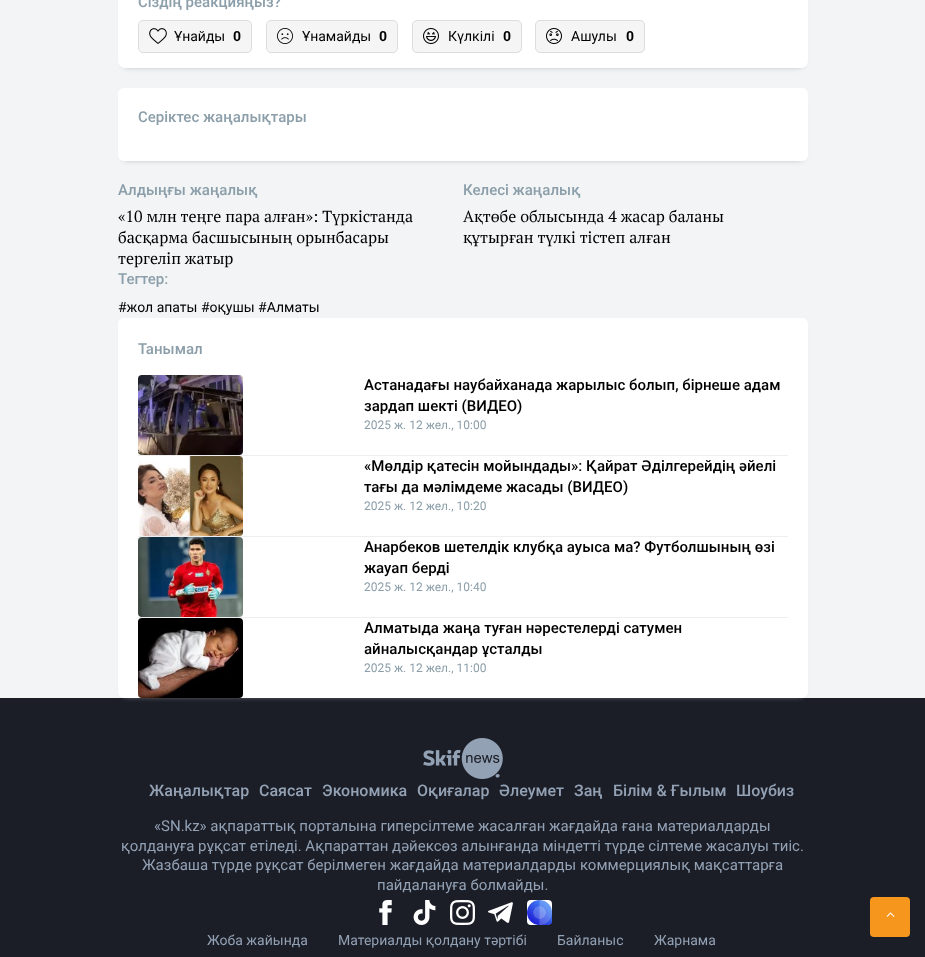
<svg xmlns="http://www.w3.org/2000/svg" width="925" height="957">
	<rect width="100%" height="100%" fill="#F2F4F5" />
	<rect x="124" y="-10" width="678" height="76" rx="1" fill="#999999" filter="blur(3px)" />
	<rect x="118" y="-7" width="690" height="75" rx="7" fill="#FFFFFF" />
	<text x="138" y="7" font-family="Roboto" font-size="15" font-weight="500" fill="#8B9EA9">Сіздің реакцияңыз?</text>
	<rect x="138.5" y="20.5" width="113" height="32" rx="4.5" fill="#F5F5F5" stroke="#DDDDDD" />
	<image x="149" y="28" width="18" height="16" href="assets/img1.png" />
	<text x="174" y="41" font-family="Roboto" font-size="14" fill="#000000">Ұнайды</text>
	<text x="233" y="41" font-family="Roboto" font-size="14" font-weight="700" fill="#000000">0</text>
	<rect x="266.5" y="20.5" width="131" height="32" rx="4.5" fill="#F5F5F5" stroke="#DDDDDD" />
	<image x="277" y="28" width="16" height="16" href="assets/img2.png" />
	<text x="302" y="41" font-family="Roboto" font-size="14" fill="#000000">Ұнамайды</text>
	<text x="379" y="41" font-family="Roboto" font-size="14" font-weight="700" fill="#000000">0</text>
	<rect x="412.5" y="20.5" width="109" height="32" rx="4.5" fill="#F5F5F5" stroke="#DDDDDD" />
	<image x="423" y="28" width="16" height="16" href="assets/img3.png" />
	<text x="448" y="41" font-family="Roboto" font-size="14" fill="#000000">Күлкілі</text>
	<text x="503" y="41" font-family="Roboto" font-size="14" font-weight="700" fill="#000000">0</text>
	<rect x="535.5" y="20.5" width="109" height="32" rx="4.5" fill="#F5F5F5" stroke="#DDDDDD" />
	<image x="546" y="28" width="16" height="16" href="assets/img4.png" />
	<text x="571" y="41" font-family="Roboto" font-size="14" fill="#000000">Ашулы</text>
	<text x="626" y="41" font-family="Roboto" font-size="14" font-weight="700" fill="#000000">0</text>
	<rect x="124" y="98" width="678" height="61" fill="#999999" filter="blur(3px)" />
	<rect x="118" y="88" width="690" height="73" rx="6" fill="#FFFFFF" />
	<g font-family="Roboto" font-size="15" font-weight="500" fill="#8B9EA9">
		<text x="138" y="122">Серіктес жаңалықтары</text>
		<text x="118" y="195">Алдыңғы жаңалық</text>
	</g>
	<g font-family="PT Serif" font-size="16" fill="#000000">
		<text x="118" y="222">«10 млн теңге пара алған»: Түркістанда</text>
		<text x="118" y="243">басқарма басшысының орынбасары</text>
		<text x="118" y="264">тергеліп жатыр</text>
	</g>
	<text x="463" y="195" font-family="Roboto" font-size="15" font-weight="500" fill="#8B9EA9">Келесі жаңалық</text>
	<g font-family="PT Serif" font-size="16" fill="#000000">
		<text x="463" y="222">Ақтөбе облысында 4 жасар баланы</text>
		<text x="463" y="243">құтырған түлкі тістеп алған</text>
	</g>
	<text x="118" y="284" font-family="Roboto" font-size="15" font-weight="500" fill="#8B9EA9">Тегтер:</text>
	<text x="118" y="312" font-family="Roboto" font-size="14" fill="#000000">#жол апаты #оқушы #Алматы</text>
	<rect x="0" y="698" width="925" height="259" fill="#1B1E26" />
	<rect x="124" y="328" width="678" height="368" fill="#999999" filter="blur(3px)" />
	<rect x="118" y="318" width="690" height="380" rx="6" fill="#FFFFFF" />
	<text x="138" y="354" font-family="Roboto" font-size="15" font-weight="500" fill="#8B9EA9">Танымал</text>
	<rect x="138" y="455" width="650" height="1" fill="#EEEEEE" />
	<image x="138" y="375" width="105" height="80" href="assets/img5.png" />
	<g font-family="Roboto" font-size="15" font-weight="500" fill="#000000">
		<text x="364" y="390">Астанадағы наубайханада жарылыс болып, бірнеше адам</text>
		<text x="364" y="411">зардап шекті (ВИДЕО)</text>
	</g>
	<text x="364" y="429" font-family="Roboto" font-size="12" fill="#8B9EA9">2025 ж. 12 жел., 10:00</text>
	<rect x="138" y="536" width="650" height="1" fill="#EEEEEE" />
	<image x="138" y="456" width="105" height="80" href="assets/img6.png" />
	<g font-family="Roboto" font-size="15" font-weight="500" fill="#000000">
		<text x="364" y="471">«Мөлдір қатесін мойындады»: Қайрат Әділгерейдің әйелі</text>
		<text x="364" y="492">тағы да мәлімдеме жасады (ВИДЕО)</text>
	</g>
	<text x="364" y="510" font-family="Roboto" font-size="12" fill="#8B9EA9">2025 ж. 12 жел., 10:20</text>
	<rect x="138" y="617" width="650" height="1" fill="#EEEEEE" />
	<image x="138" y="537" width="105" height="80" href="assets/img7.png" />
	<g font-family="Roboto" font-size="15" font-weight="500" fill="#000000">
		<text x="364" y="552">Анарбеков шетелдік клубқа ауыса ма? Футболшының өзі</text>
		<text x="364" y="573">жауап берді</text>
	</g>
	<text x="364" y="591" font-family="Roboto" font-size="12" fill="#8B9EA9">2025 ж. 12 жел., 10:40</text>
	<image x="138" y="618" width="105" height="80" href="assets/img8.png" />
	<g font-family="Roboto" font-size="15" font-weight="500" fill="#000000">
		<text x="364" y="633">Алматыда жаңа туған нәрестелерді сатумен</text>
		<text x="364" y="654">айналысқандар ұсталды</text>
	</g>
	<text x="364" y="672" font-family="Roboto" font-size="12" fill="#8B9EA9">2025 ж. 12 жел., 11:00</text>
	<image x="423" y="738" width="80" height="41" href="assets/img9.png" />
	<g font-family="Roboto" font-size="16" font-weight="500" fill="#93A1B5">
		<text x="149" y="796">Жаңалықтар</text>
		<text x="259" y="796">Саясат</text>
		<text x="322" y="796">Экономика</text>
		<text x="417" y="796">Оқиғалар</text>
		<text x="499" y="796">Әлеумет</text>
		<text x="574" y="796">Заң</text>
		<text x="613" y="796">Білім &amp; Ғылым</text>
		<text x="736" y="796">Шоубиз</text>
	</g>
	<g font-family="Roboto" font-size="15" fill="#93A1B5">
		<text x="154" y="831">«SN.kz» ақпараттық порталына гиперсілтеме жасалған жағдайда ғана материалдарды</text>
		<text x="121" y="851">қолдануға рұқсат етіледі. Ақпараттан дәйексөз алынғанда міндетті түрде сілтеме жасалуы тиіс.</text>
		<text x="142" y="870">Жазбаша түрде рұқсат берілмеген жағдайда материалдарды коммерциялық мақсаттарға</text>
		<text x="377" y="890">пайдалануға болмайды.</text>
	</g>
	<image x="379" y="900" width="13" height="25" href="assets/img10.png" />
	<image x="413" y="900" width="23" height="25" href="assets/img11.png" />
	<image x="450" y="900" width="25" height="25" href="assets/img12.png" />
	<image x="488" y="902" width="25" height="21" href="assets/img13.png" />
	<image x="527" y="900" width="25" height="25" href="assets/img14.png" />
	<g font-family="Roboto" font-size="14" fill="#93A1B5">
		<text x="207" y="945">Жоба жайында</text>
		<text x="338" y="945">Материалды қолдану тәртібі</text>
		<text x="557" y="945">Байланыс</text>
		<text x="654" y="945">Жарнама</text>
	</g>
	<rect x="870" y="897" width="40" height="40" rx="4" fill="#F7961D" />
	<image x="886" y="912" width="9" height="5" href="assets/img15.png" />
</svg>
